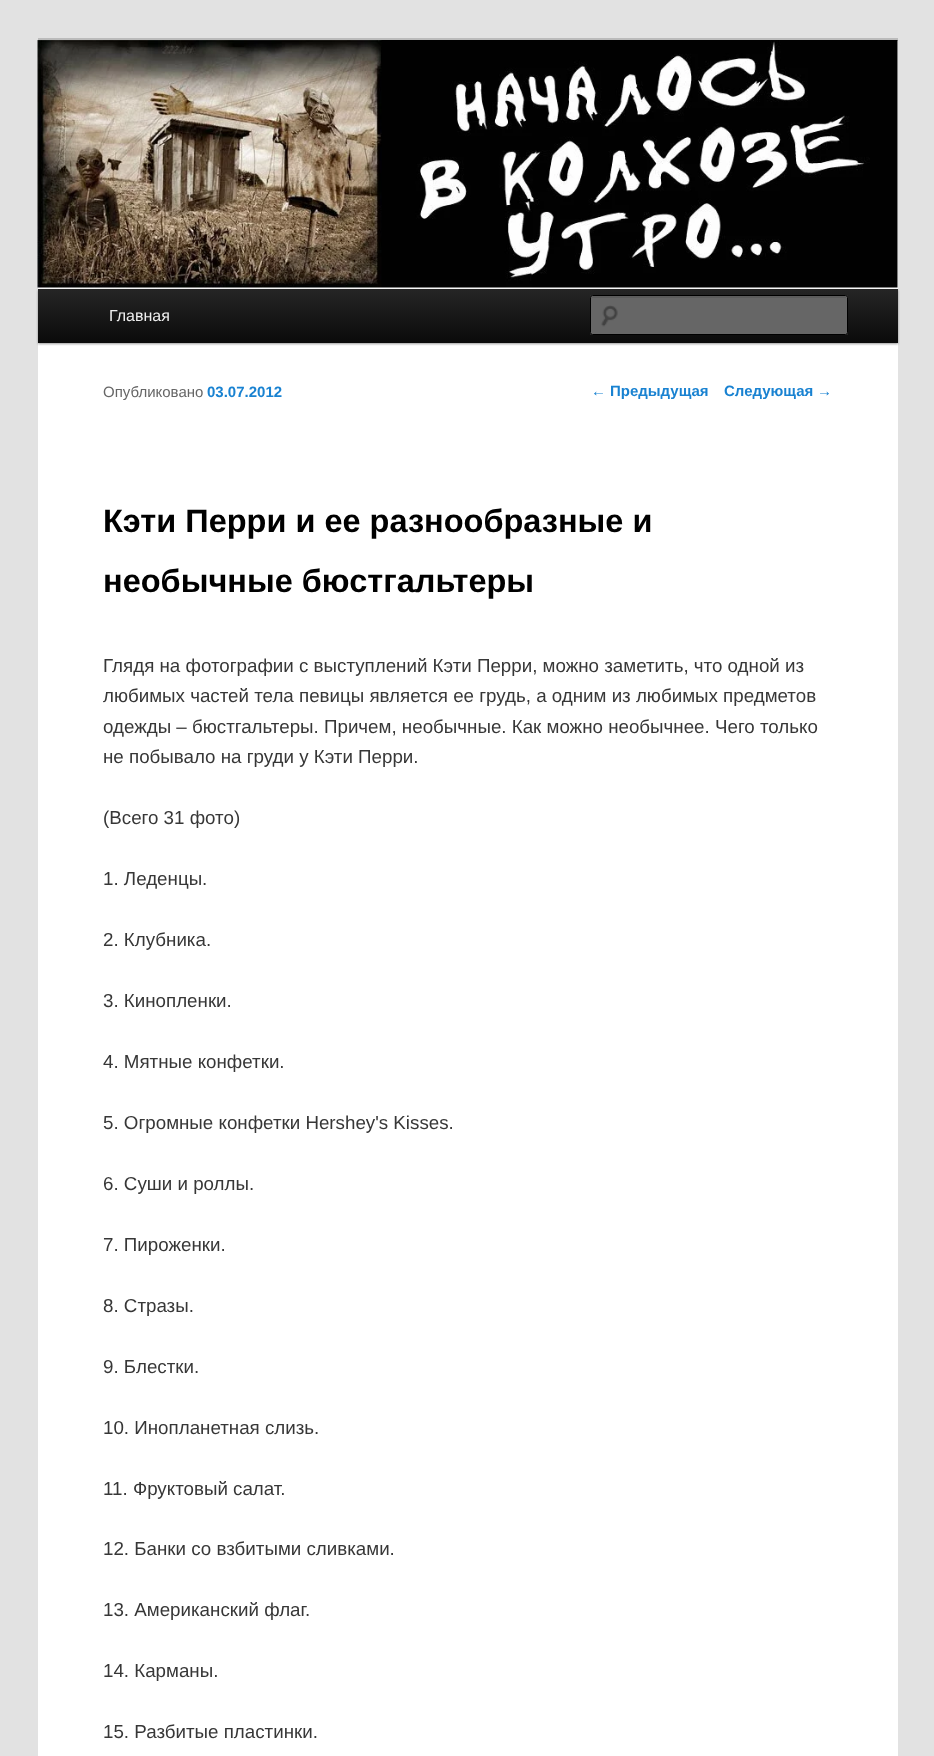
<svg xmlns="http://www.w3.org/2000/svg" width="934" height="1756">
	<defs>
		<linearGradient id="g1" gradientUnits="userSpaceOnUse" x1="468" y1="289" x2="468" y2="343"><stop offset="0" stop-color="#252525" /><stop offset="1" stop-color="#0A0A0A" /></linearGradient>
	</defs>
	<rect width="100%" height="100%" fill="#E2E2E2" />
	<rect x="38" y="41" width="860" height="1715" fill="#FFFFFF" />
	<rect x="38" y="38" width="860" height="3" fill="#BBBBBB" />
	<rect x="38" y="290" width="860" height="54" fill="#000000" fill-opacity="0.4" filter="blur(1px)" />
	<image x="37" y="40" width="861" height="248" href="assets/img1.png" />
	<rect x="38" y="289" width="860" height="54" fill="url(#g1)" />
	<text x="109" y="321" font-family="Liberation Sans" font-size="16" fill="#EEEEEE">Главная</text>
	<rect x="590" y="295" width="258" height="40" rx="2.5" fill="#666666" />
	<image x="601" y="305" width="17" height="22" href="assets/img2.png" />
	<path d="M592 298H845C846 298 846 298 846 299V296H592C591 296 591 298 591 299Z" fill="#5C5C5C" />
	<rect x="590.5" y="295.5" width="257" height="39" rx="2" fill="none" stroke="#000000" />
	<text x="591" y="396" font-family="Liberation Sans" font-size="15" fill="#1982D1">←</text>
	<g font-family="Liberation Sans" font-size="15" font-weight="700" fill="#1982D1">
		<text x="610" y="396">Предыдущая</text>
		<text x="724" y="396">Следующая</text>
	</g>
	<text x="817" y="396" font-family="Liberation Sans" font-size="15" fill="#1982D1">→</text>
	<text x="103" y="397" font-family="Liberation Sans" font-size="15" fill="#666666">Опубликовано</text>
	<text x="207" y="397" font-family="Liberation Sans" font-size="15" font-weight="700" fill="#1982D1">03.07.2012</text>
	<g font-family="Liberation Sans" font-size="32.5" font-weight="700" fill="#000000">
		<text x="103" y="532">Кэти Перри и ее разнообразные и</text>
		<text x="103" y="592">необычные бюстгальтеры</text>
	</g>
	<g font-family="Liberation Sans" font-size="18.75" fill="#373737">
		<text x="103" y="672">Глядя на фотографии с выступлений Кэти Перри, можно заметить, что одной из</text>
		<text x="103" y="702">любимых частей тела певицы является ее грудь, а одним из любимых предметов</text>
		<text x="103" y="733">одежды – бюстгальтеры. Причем, необычные. Как можно необычнее. Чего только</text>
		<text x="103" y="763">не побывало на груди у Кэти Перри.</text>
		<text x="103" y="824">(Всего 31 фото)</text>
		<text x="103" y="885">1. Леденцы.</text>
		<text x="103" y="946">2. Клубника.</text>
		<text x="103" y="1007">3. Кинопленки.</text>
		<text x="103" y="1068">4. Мятные конфетки.</text>
		<text x="103" y="1129">5. Огромные конфетки Hershey's Kisses.</text>
		<text x="103" y="1190">6. Суши и роллы.</text>
		<text x="103" y="1251">7. Пироженки.</text>
		<text x="103" y="1312">8. Стразы.</text>
		<text x="103" y="1373">9. Блестки.</text>
		<text x="103" y="1434">10. Инопланетная слизь.</text>
		<text x="103" y="1495">11. Фруктовый салат.</text>
		<text x="103" y="1555">12. Банки со взбитыми сливками.</text>
		<text x="103" y="1616">13. Американский флаг.</text>
		<text x="103" y="1677">14. Карманы.</text>
		<text x="103" y="1738">15. Разбитые пластинки.</text>
	</g>
</svg>
